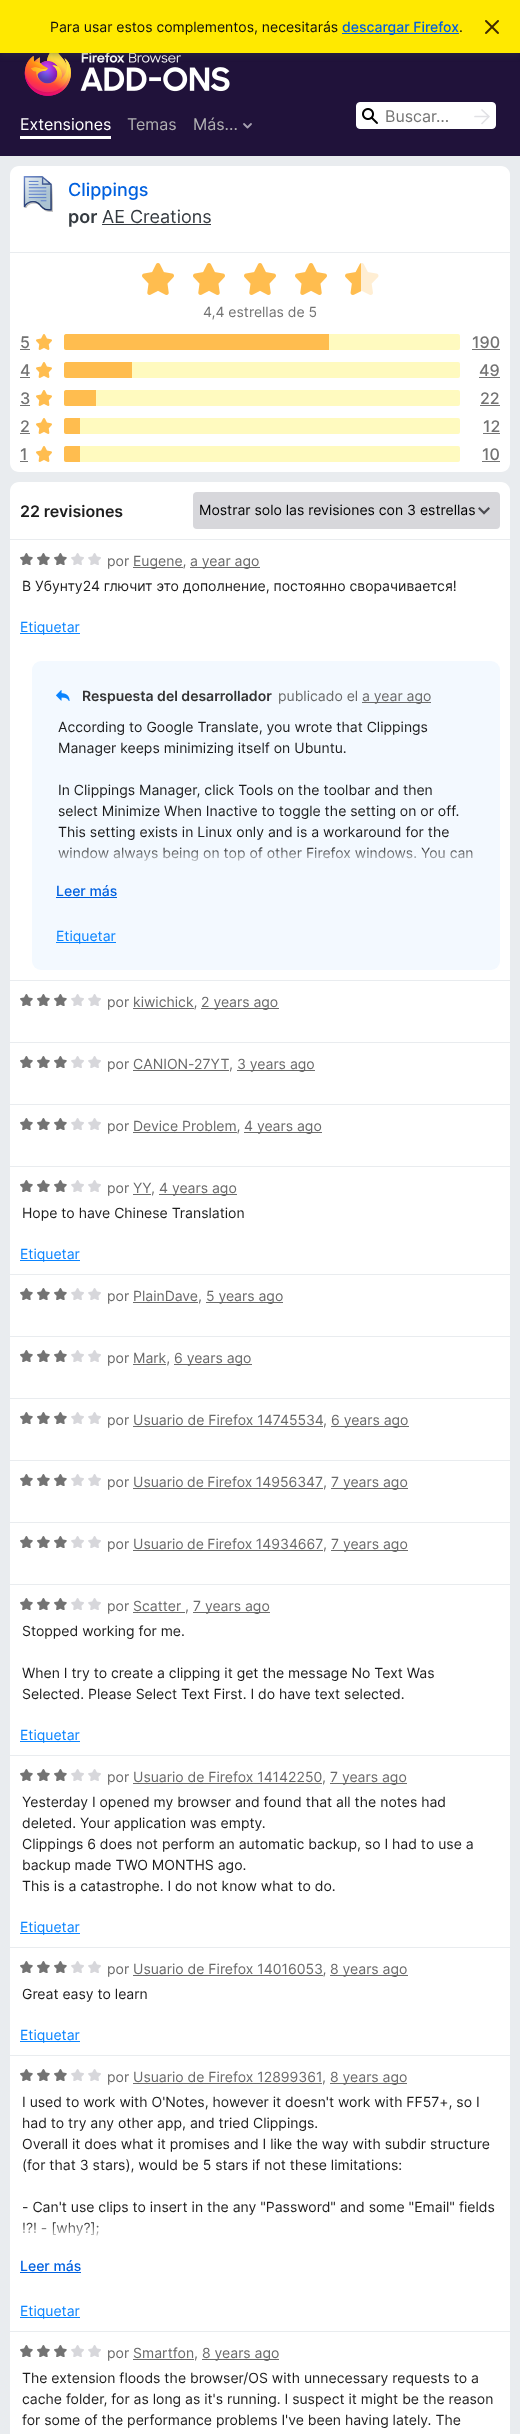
<svg xmlns="http://www.w3.org/2000/svg" width="520" height="2434">
	<defs>
		<linearGradient id="g1" gradientUnits="userSpaceOnUse" x1="267" y1="846" x2="267" y2="866"><stop offset="0" stop-color="#F4F9FF" stop-opacity="0" /><stop offset="1" stop-color="#F4F9FF" /></linearGradient>
		<linearGradient id="g2" gradientUnits="userSpaceOnUse" x1="261" y1="2221" x2="261" y2="2241"><stop offset="0" stop-color="#FFFFFF" stop-opacity="0" /><stop offset="1" stop-color="#FFFFFF" /></linearGradient>
	</defs>
	<rect width="100%" height="100%" fill="#20123A" />
	<image x="24" y="53" width="206" height="43" href="assets/img2.png" />
	<rect x="0" y="1" width="520" height="53" fill="#343A40" fill-opacity="0.5" filter="blur(3.5px)" />
	<rect x="0" y="0" width="520" height="53" fill="#FFE900" />
	<text x="50" y="32" font-family="Inter" font-size="14" fill="#0C0C0D">Para usar estos complementos, necesitarás</text>
	<rect x="342" y="33" width="117" height="1" fill="#0060DF" />
	<text x="342" y="32" font-family="Inter" font-size="14" font-weight="500" fill="#0060DF">descargar Firefox</text>
	<text x="459" y="32" font-family="Inter" font-size="14" fill="#0C0C0D">.</text>
	<image x="485" y="20" width="14" height="14" href="assets/img1.png" />
	<text x="20" y="130" font-family="Inter" font-size="16" fill="#FFFFFF">Extensiones</text>
	<rect x="20" y="136" width="91" height="3" fill="#FFFFFF" />
	<g font-family="Inter" font-size="16" fill="#B1B1B3">
		<text x="127" y="130">Temas</text>
		<text x="193" y="130">Más...</text>
	</g>
	<path d="M251 124L247.5 127.5L244 124" fill="none" stroke="#A6A0B0" stroke-width="1.8" stroke-linecap="round" stroke-linejoin="round" />
	<rect x="356.5" y="102.5" width="139" height="26" rx="3.5" fill="#FFFFFF" stroke="#FFFFFF" />
	<image x="362" y="108" width="16" height="16" href="assets/img3.png" />
	<text x="385" y="122" font-family="Inter" font-size="16" fill="#737373">Buscar…</text>
	<path d="M475 116.5H488M482 110L489 116.5L482 123.5" fill="none" stroke="#E1E1E5" stroke-width="1.7" stroke-linecap="round" stroke-linejoin="round" />
	<rect x="0" y="156" width="520" height="2278" fill="#E9ECEF" />
	<path d="M19 166H501C506 166 510 170 510 175V252H10V175C10 170 14 166 19 166Z" fill="#FFFFFF" />
	<image x="23" y="176" width="30" height="36" href="assets/img4.png" />
	<text x="68" y="196" font-family="Inter" font-size="18" font-weight="500" fill="#0060DF">Clippings</text>
	<text x="68" y="223" font-family="Inter" font-size="18" font-weight="600" fill="#343A40">por</text>
	<text x="102" y="223" font-family="Inter" font-size="18" fill="#343A40">AE Creations</text>
	<rect x="102" y="224" width="109" height="1" fill="#343A40" />
	<path d="M10 253H510V463C510 468 506 472 501 472H19C14 472 10 468 10 463Z" fill="#FFFFFF" />
	<image x="142" y="263" width="32" height="32" href="assets/img5.png" />
	<image x="193" y="263" width="32" height="32" href="assets/img5.png" />
	<image x="244" y="263" width="32" height="32" href="assets/img5.png" />
	<image x="295" y="263" width="32" height="32" href="assets/img5.png" />
	<image x="345" y="263" width="34" height="32" href="assets/img6.png" />
	<text x="203" y="317" font-family="Inter" font-size="14" fill="#737373">4,4 estrellas de 5</text>
	<text x="20" y="348" font-family="Inter" font-size="16" font-weight="500" fill="#737373">5</text>
	<rect x="20" y="349" width="10" height="1" fill="#737373" />
	<image x="36" y="334" width="16" height="16" href="assets/img7.png" />
	<rect x="64" y="334" width="396" height="16" rx="2" fill="#FFFABF" />
	<path d="M66 334H329V350H66C65 350 64 349 64 348V336C64 335 65 334 66 334Z" fill="#FFBD4F" />
	<text x="472" y="348" font-family="Inter" font-size="16" font-weight="500" fill="#737373">190</text>
	<rect x="472" y="349" width="28" height="1" fill="#737373" />
	<text x="20" y="376" font-family="Inter" font-size="16" font-weight="500" fill="#737373">4</text>
	<rect x="20" y="377" width="10" height="1" fill="#737373" />
	<image x="36" y="362" width="16" height="16" href="assets/img7.png" />
	<rect x="64" y="362" width="396" height="16" rx="2" fill="#FFFABF" />
	<path d="M66 362H132V378H66C65 378 64 377 64 376V364C64 363 65 362 66 362Z" fill="#FFBD4F" />
	<text x="479" y="376" font-family="Inter" font-size="16" font-weight="500" fill="#737373">49</text>
	<rect x="479" y="377" width="21" height="1" fill="#737373" />
	<text x="20" y="404" font-family="Inter" font-size="16" font-weight="500" fill="#737373">3</text>
	<rect x="20" y="405" width="10" height="1" fill="#737373" />
	<image x="36" y="390" width="16" height="16" href="assets/img7.png" />
	<rect x="64" y="390" width="396" height="16" rx="2" fill="#FFFABF" />
	<path d="M66 390H96V406H66C65 406 64 405 64 404V392C64 391 65 390 66 390Z" fill="#FFBD4F" />
	<text x="480" y="404" font-family="Inter" font-size="16" font-weight="500" fill="#737373">22</text>
	<rect x="480" y="405" width="20" height="1" fill="#737373" />
	<text x="20" y="432" font-family="Inter" font-size="16" font-weight="500" fill="#737373">2</text>
	<rect x="20" y="433" width="10" height="1" fill="#737373" />
	<image x="36" y="418" width="16" height="16" href="assets/img7.png" />
	<rect x="64" y="418" width="396" height="16" rx="2" fill="#FFFABF" />
	<path d="M66 418H80V434H66C65 434 64 433 64 432V420C64 419 65 418 66 418Z" fill="#FFBD4F" />
	<text x="483" y="432" font-family="Inter" font-size="16" font-weight="500" fill="#737373">12</text>
	<rect x="483" y="433" width="17" height="1" fill="#737373" />
	<text x="20" y="460" font-family="Inter" font-size="16" font-weight="500" fill="#737373">1</text>
	<rect x="20" y="461" width="8" height="1" fill="#737373" />
	<image x="36" y="446" width="16" height="16" href="assets/img7.png" />
	<rect x="64" y="446" width="396" height="16" rx="2" fill="#FFFABF" />
	<path d="M66 446H80V462H66C65 462 64 461 64 460V448C64 447 65 446 66 446Z" fill="#FFBD4F" />
	<text x="482" y="460" font-family="Inter" font-size="16" font-weight="500" fill="#737373">10</text>
	<rect x="482" y="461" width="18" height="1" fill="#737373" />
	<path d="M19 482H501C506 482 510 486 510 491V539H10V491C10 486 14 482 19 482Z" fill="#FFFFFF" />
	<text x="20" y="517" font-family="Inter" font-size="16" font-weight="600" fill="#1D1D1D">22 revisiones</text>
	<rect x="193" y="492" width="307" height="37" rx="4" fill="#D7D7DB" />
	<image x="478" y="507" width="12" height="8" href="assets/img8.png" />
	<text x="199" y="515" font-family="Inter" font-size="14" fill="#000000">Mostrar solo las revisiones con 3 estrellas</text>
	<rect x="10" y="540" width="500" height="440" fill="#FFFFFF" />
	<image x="20" y="553" width="13" height="12" href="assets/img9.png" />
	<image x="37" y="553" width="13" height="12" href="assets/img9.png" />
	<image x="54" y="553" width="13" height="12" href="assets/img9.png" />
	<image x="71" y="553" width="13" height="12" href="assets/img10.png" />
	<image x="88" y="553" width="13" height="12" href="assets/img10.png" />
	<text x="107" y="566" font-family="Inter" font-size="14" fill="#6A6A6A">por</text>
	<rect x="133" y="567" width="50" height="1" fill="#6A6A6A" />
	<text x="133" y="566" font-family="Inter" font-size="14" fill="#6A6A6A">Eugene,</text>
	<rect x="190" y="567" width="70" height="1" fill="#6A6A6A" />
	<text x="190" y="566" font-family="Inter" font-size="14" fill="#6A6A6A">a year ago</text>
	<text x="22" y="591" font-family="Inter" font-size="14" fill="#1D1D1D">В Убунту24 глючит это дополнение, постоянно сворачивается!</text>
	<rect x="20" y="633" width="60" height="1" fill="#0A84FF" />
	<text x="20" y="632" font-family="Inter" font-size="14" fill="#0A84FF">Etiquetar</text>
	<rect x="32" y="661" width="468" height="309" rx="9" fill="#F3F9FF" />
	<image x="56" y="690" width="14" height="11" href="assets/img11.png" />
	<text x="82" y="701" font-family="Inter" font-size="14" font-weight="600" fill="#333333">Respuesta del desarrollador</text>
	<text x="278" y="701" font-family="Inter" font-size="14" fill="#6A6A6A">publicado el</text>
	<rect x="362" y="702" width="69" height="1" fill="#6A6A6A" />
	<text x="362" y="701" font-family="Inter" font-size="14" fill="#6A6A6A">a year ago</text>
	<g font-family="Inter" font-size="14" fill="#1D1D1D">
		<text x="58" y="732">According to Google Translate, you wrote that Clippings</text>
		<text x="58" y="753">Manager keeps minimizing itself on Ubuntu.</text>
		<text x="58" y="795">In Clippings Manager, click Tools on the toolbar and then</text>
		<text x="58" y="816">select Minimize When Inactive to toggle the setting on or off.</text>
		<text x="58" y="837">This setting exists in Linux only and is a workaround for the</text>
		<text x="58" y="858">window always being on top of other Firefox windows. You can</text>
	</g>
	<rect x="58" y="847" width="415" height="14" fill="url(#g1)" />
	<text x="56" y="896" font-family="Inter" font-size="14" font-weight="500" fill="#0060DF">Leer más</text>
	<rect x="56" y="897" width="61" height="1" fill="#0060DF" />
	<rect x="56" y="942" width="60" height="1" fill="#0A84FF" />
	<text x="56" y="941" font-family="Inter" font-size="14" fill="#0A84FF">Etiquetar</text>
	<rect x="10" y="981" width="500" height="61" fill="#FFFFFF" />
	<image x="20" y="994" width="13" height="12" href="assets/img9.png" />
	<image x="37" y="994" width="13" height="12" href="assets/img9.png" />
	<image x="54" y="994" width="13" height="12" href="assets/img9.png" />
	<image x="71" y="994" width="13" height="12" href="assets/img10.png" />
	<image x="88" y="994" width="13" height="12" href="assets/img10.png" />
	<text x="107" y="1007" font-family="Inter" font-size="14" fill="#6A6A6A">por kiwichick,</text>
	<rect x="201" y="1008" width="78" height="1" fill="#6A6A6A" />
	<text x="201" y="1007" font-family="Inter" font-size="14" fill="#6A6A6A">2 years ago</text>
	<rect x="133" y="1008" width="61" height="1" fill="#6A6A6A" />
	<rect x="10" y="1043" width="500" height="61" fill="#FFFFFF" />
	<image x="20" y="1056" width="13" height="12" href="assets/img9.png" />
	<image x="37" y="1056" width="13" height="12" href="assets/img9.png" />
	<image x="54" y="1056" width="13" height="12" href="assets/img9.png" />
	<image x="71" y="1056" width="13" height="12" href="assets/img10.png" />
	<image x="88" y="1056" width="13" height="12" href="assets/img10.png" />
	<g font-family="Inter" font-size="14" fill="#6A6A6A">
		<text x="107" y="1069">por CANION-27YT</text>
		<text x="229" y="1069">,</text>
	</g>
	<rect x="237" y="1070" width="78" height="1" fill="#6A6A6A" />
	<text x="237" y="1069" font-family="Inter" font-size="14" fill="#6A6A6A">3 years ago</text>
	<rect x="133" y="1070" width="96" height="1" fill="#6A6A6A" />
	<rect x="10" y="1105" width="500" height="61" fill="#FFFFFF" />
	<image x="20" y="1118" width="13" height="12" href="assets/img9.png" />
	<image x="37" y="1118" width="13" height="12" href="assets/img9.png" />
	<image x="54" y="1118" width="13" height="12" href="assets/img9.png" />
	<image x="71" y="1118" width="13" height="12" href="assets/img10.png" />
	<image x="88" y="1118" width="13" height="12" href="assets/img10.png" />
	<text x="107" y="1131" font-family="Inter" font-size="14" fill="#6A6A6A">por Device Problem,</text>
	<rect x="244" y="1132" width="78" height="1" fill="#6A6A6A" />
	<text x="244" y="1131" font-family="Inter" font-size="14" fill="#6A6A6A">4 years ago</text>
	<rect x="133" y="1132" width="104" height="1" fill="#6A6A6A" />
	<rect x="10" y="1167" width="500" height="107" fill="#FFFFFF" />
	<image x="20" y="1180" width="13" height="12" href="assets/img9.png" />
	<image x="37" y="1180" width="13" height="12" href="assets/img9.png" />
	<image x="54" y="1180" width="13" height="12" href="assets/img9.png" />
	<image x="71" y="1180" width="13" height="12" href="assets/img10.png" />
	<image x="88" y="1180" width="13" height="12" href="assets/img10.png" />
	<g font-family="Inter" font-size="14" fill="#6A6A6A">
		<text x="107" y="1193">por YY</text>
		<text x="151" y="1193">,</text>
	</g>
	<rect x="159" y="1194" width="78" height="1" fill="#6A6A6A" />
	<text x="159" y="1193" font-family="Inter" font-size="14" fill="#6A6A6A">4 years ago</text>
	<rect x="133" y="1194" width="18" height="1" fill="#6A6A6A" />
	<text x="22" y="1218" font-family="Inter" font-size="14" fill="#1D1D1D">Hope to have Chinese Translation</text>
	<rect x="20" y="1260" width="60" height="1" fill="#0A84FF" />
	<text x="20" y="1259" font-family="Inter" font-size="14" fill="#0A84FF">Etiquetar</text>
	<rect x="10" y="1275" width="500" height="61" fill="#FFFFFF" />
	<image x="20" y="1288" width="13" height="12" href="assets/img9.png" />
	<image x="37" y="1288" width="13" height="12" href="assets/img9.png" />
	<image x="54" y="1288" width="13" height="12" href="assets/img9.png" />
	<image x="71" y="1288" width="13" height="12" href="assets/img10.png" />
	<image x="88" y="1288" width="13" height="12" href="assets/img10.png" />
	<text x="107" y="1301" font-family="Inter" font-size="14" fill="#6A6A6A">por PlainDave,</text>
	<rect x="206" y="1302" width="77" height="1" fill="#6A6A6A" />
	<text x="206" y="1301" font-family="Inter" font-size="14" fill="#6A6A6A">5 years ago</text>
	<rect x="133" y="1302" width="65" height="1" fill="#6A6A6A" />
	<rect x="10" y="1337" width="500" height="61" fill="#FFFFFF" />
	<image x="20" y="1350" width="13" height="12" href="assets/img9.png" />
	<image x="37" y="1350" width="13" height="12" href="assets/img9.png" />
	<image x="54" y="1350" width="13" height="12" href="assets/img9.png" />
	<image x="71" y="1350" width="13" height="12" href="assets/img10.png" />
	<image x="88" y="1350" width="13" height="12" href="assets/img10.png" />
	<text x="107" y="1363" font-family="Inter" font-size="14" fill="#6A6A6A">por Mark,</text>
	<rect x="174" y="1364" width="78" height="1" fill="#6A6A6A" />
	<text x="174" y="1363" font-family="Inter" font-size="14" fill="#6A6A6A">6 years ago</text>
	<rect x="133" y="1364" width="33" height="1" fill="#6A6A6A" />
	<rect x="10" y="1399" width="500" height="61" fill="#FFFFFF" />
	<image x="20" y="1412" width="13" height="12" href="assets/img9.png" />
	<image x="37" y="1412" width="13" height="12" href="assets/img9.png" />
	<image x="54" y="1412" width="13" height="12" href="assets/img9.png" />
	<image x="71" y="1412" width="13" height="12" href="assets/img10.png" />
	<image x="88" y="1412" width="13" height="12" href="assets/img10.png" />
	<g font-family="Inter" font-size="14" fill="#6A6A6A">
		<text x="107" y="1425">por</text>
		<text x="133" y="1425">Usuario de Firefox 14745534</text>
	</g>
	<rect x="133" y="1426" width="190" height="1" fill="#6A6A6A" />
	<text x="323" y="1425" font-family="Inter" font-size="14" fill="#6A6A6A">,</text>
	<rect x="331" y="1426" width="78" height="1" fill="#6A6A6A" />
	<text x="331" y="1425" font-family="Inter" font-size="14" fill="#6A6A6A">6 years ago</text>
	<rect x="10" y="1461" width="500" height="61" fill="#FFFFFF" />
	<image x="20" y="1474" width="13" height="12" href="assets/img9.png" />
	<image x="37" y="1474" width="13" height="12" href="assets/img9.png" />
	<image x="54" y="1474" width="13" height="12" href="assets/img9.png" />
	<image x="71" y="1474" width="13" height="12" href="assets/img10.png" />
	<image x="88" y="1474" width="13" height="12" href="assets/img10.png" />
	<g font-family="Inter" font-size="14" fill="#6A6A6A">
		<text x="107" y="1487">por</text>
		<text x="133" y="1487" word-spacing="-0.5">Usuario de Firefox 14956347</text>
	</g>
	<rect x="133" y="1488" width="190" height="1" fill="#6A6A6A" />
	<text x="323" y="1487" font-family="Inter" font-size="14" fill="#6A6A6A">,</text>
	<rect x="331" y="1488" width="77" height="1" fill="#6A6A6A" />
	<text x="331" y="1487" font-family="Inter" font-size="14" fill="#6A6A6A">7 years ago</text>
	<rect x="10" y="1523" width="500" height="61" fill="#FFFFFF" />
	<image x="20" y="1536" width="13" height="12" href="assets/img9.png" />
	<image x="37" y="1536" width="13" height="12" href="assets/img9.png" />
	<image x="54" y="1536" width="13" height="12" href="assets/img9.png" />
	<image x="71" y="1536" width="13" height="12" href="assets/img10.png" />
	<image x="88" y="1536" width="13" height="12" href="assets/img10.png" />
	<g font-family="Inter" font-size="14" fill="#6A6A6A">
		<text x="107" y="1549">por</text>
		<text x="133" y="1549" word-spacing="-0.5">Usuario de Firefox 14934667</text>
	</g>
	<rect x="133" y="1550" width="190" height="1" fill="#6A6A6A" />
	<text x="323" y="1549" font-family="Inter" font-size="14" fill="#6A6A6A">,</text>
	<rect x="331" y="1550" width="77" height="1" fill="#6A6A6A" />
	<text x="331" y="1549" font-family="Inter" font-size="14" fill="#6A6A6A">7 years ago</text>
	<rect x="10" y="1585" width="500" height="170" fill="#FFFFFF" />
	<image x="20" y="1598" width="13" height="12" href="assets/img9.png" />
	<image x="37" y="1598" width="13" height="12" href="assets/img9.png" />
	<image x="54" y="1598" width="13" height="12" href="assets/img9.png" />
	<image x="71" y="1598" width="13" height="12" href="assets/img10.png" />
	<image x="88" y="1598" width="13" height="12" href="assets/img10.png" />
	<text x="107" y="1611" font-family="Inter" font-size="14" fill="#6A6A6A">por Scatter ,</text>
	<rect x="193" y="1612" width="77" height="1" fill="#6A6A6A" />
	<text x="193" y="1611" font-family="Inter" font-size="14" fill="#6A6A6A">7 years ago</text>
	<rect x="133" y="1612" width="52" height="1" fill="#6A6A6A" />
	<g font-family="Inter" font-size="14" fill="#1D1D1D">
		<text x="22" y="1636">Stopped working for me.</text>
		<text x="22" y="1678">When I try to create a clipping it get the message No Text Was</text>
		<text x="22" y="1699">Selected. Please Select Text First. I do have text selected.</text>
	</g>
	<rect x="20" y="1741" width="60" height="1" fill="#0A84FF" />
	<text x="20" y="1740" font-family="Inter" font-size="14" fill="#0A84FF">Etiquetar</text>
	<rect x="10" y="1756" width="500" height="191" fill="#FFFFFF" />
	<image x="20" y="1769" width="13" height="12" href="assets/img9.png" />
	<image x="37" y="1769" width="13" height="12" href="assets/img9.png" />
	<image x="54" y="1769" width="13" height="12" href="assets/img9.png" />
	<image x="71" y="1769" width="13" height="12" href="assets/img10.png" />
	<image x="88" y="1769" width="13" height="12" href="assets/img10.png" />
	<g font-family="Inter" font-size="14" fill="#6A6A6A">
		<text x="107" y="1782">por</text>
		<text x="133" y="1782">Usuario de Firefox 14142250</text>
	</g>
	<rect x="133" y="1783" width="189" height="1" fill="#6A6A6A" />
	<text x="322" y="1782" font-family="Inter" font-size="14" fill="#6A6A6A">,</text>
	<rect x="330" y="1783" width="77" height="1" fill="#6A6A6A" />
	<text x="330" y="1782" font-family="Inter" font-size="14" fill="#6A6A6A">7 years ago</text>
	<g font-family="Inter" font-size="14" fill="#1D1D1D">
		<text x="22" y="1807">Yesterday I opened my browser and found that all the notes had</text>
		<text x="22" y="1828">deleted. Your application was empty.</text>
		<text x="22" y="1849">Clippings 6 does not perform an automatic backup, so I had to use a</text>
		<text x="22" y="1870">backup made TWO MONTHS ago.</text>
		<text x="22" y="1891">This is a catastrophe. I do not know what to do.</text>
	</g>
	<rect x="20" y="1933" width="60" height="1" fill="#0A84FF" />
	<text x="20" y="1932" font-family="Inter" font-size="14" fill="#0A84FF">Etiquetar</text>
	<rect x="10" y="1948" width="500" height="107" fill="#FFFFFF" />
	<image x="20" y="1961" width="13" height="12" href="assets/img9.png" />
	<image x="37" y="1961" width="13" height="12" href="assets/img9.png" />
	<image x="54" y="1961" width="13" height="12" href="assets/img9.png" />
	<image x="71" y="1961" width="13" height="12" href="assets/img10.png" />
	<image x="88" y="1961" width="13" height="12" href="assets/img10.png" />
	<text x="107" y="1974" font-family="Inter" font-size="14" fill="#6A6A6A">por Usuario de Firefox 14016053,</text>
	<rect x="330" y="1975" width="78" height="1" fill="#6A6A6A" />
	<text x="330" y="1974" font-family="Inter" font-size="14" fill="#6A6A6A">8 years ago</text>
	<rect x="133" y="1975" width="190" height="1" fill="#6A6A6A" />
	<text x="22" y="1999" font-family="Inter" font-size="14" fill="#1D1D1D">Great easy to learn</text>
	<rect x="20" y="2041" width="60" height="1" fill="#0A84FF" />
	<text x="20" y="2040" font-family="Inter" font-size="14" fill="#0A84FF">Etiquetar</text>
	<rect x="10" y="2056" width="500" height="275" fill="#FFFFFF" />
	<image x="20" y="2069" width="13" height="12" href="assets/img9.png" />
	<image x="37" y="2069" width="13" height="12" href="assets/img9.png" />
	<image x="54" y="2069" width="13" height="12" href="assets/img9.png" />
	<image x="71" y="2069" width="13" height="12" href="assets/img10.png" />
	<image x="88" y="2069" width="13" height="12" href="assets/img10.png" />
	<g font-family="Inter" font-size="14" fill="#6A6A6A">
		<text x="107" y="2082">por</text>
		<text x="133" y="2082">Usuario de Firefox 12899361</text>
	</g>
	<rect x="133" y="2083" width="189" height="1" fill="#6A6A6A" />
	<text x="322" y="2082" font-family="Inter" font-size="14" fill="#6A6A6A">,</text>
	<rect x="330" y="2083" width="77" height="1" fill="#6A6A6A" />
	<text x="330" y="2082" font-family="Inter" font-size="14" fill="#6A6A6A">8 years ago</text>
	<g font-family="Inter" font-size="14" fill="#1D1D1D">
		<text x="22" y="2107">I used to work with O'Notes, however it doesn't work with FF57+, so I</text>
		<text x="22" y="2128">had to try any other app, and tried Clippings.</text>
		<text x="22" y="2149">Overall it does what it promises and I like the way with subdir structure</text>
		<text x="22" y="2170">(for that 3 stars), would be 5 stars if not these limitations:</text>
		<text x="22" y="2212">- Can't use clips to insert in the any "Password" and some "Email" fields</text>
		<text x="22" y="2233">!?! - [why?];</text>
	</g>
	<rect x="23" y="2222" width="76" height="14" fill="url(#g2)" />
	<text x="20" y="2271" font-family="Inter" font-size="14" font-weight="500" fill="#0060DF">Leer más</text>
	<rect x="20" y="2272" width="61" height="1" fill="#0060DF" />
	<rect x="20" y="2317" width="60" height="1" fill="#0A84FF" />
	<text x="20" y="2316" font-family="Inter" font-size="14" fill="#0A84FF">Etiquetar</text>
	<rect x="10" y="2332" width="500" height="102" fill="#FFFFFF" />
	<image x="20" y="2345" width="13" height="12" href="assets/img9.png" />
	<image x="37" y="2345" width="13" height="12" href="assets/img9.png" />
	<image x="54" y="2345" width="13" height="12" href="assets/img9.png" />
	<image x="71" y="2345" width="13" height="12" href="assets/img10.png" />
	<image x="88" y="2345" width="13" height="12" href="assets/img10.png" />
	<text x="107" y="2358" font-family="Inter" font-size="14" fill="#6A6A6A">por Smartfon,</text>
	<rect x="202" y="2359" width="77" height="1" fill="#6A6A6A" />
	<text x="202" y="2358" font-family="Inter" font-size="14" fill="#6A6A6A">8 years ago</text>
	<rect x="133" y="2359" width="61" height="1" fill="#6A6A6A" />
	<g font-family="Inter" font-size="14" fill="#1D1D1D">
		<text x="22" y="2383">The extension floods the browser/OS with unnecessary requests to a</text>
		<text x="22" y="2404">cache folder, for as long as it's running. I suspect it might be the reason</text>
		<text x="22" y="2425">for some of the performance problems I've been having lately. The</text>
	</g>
</svg>
